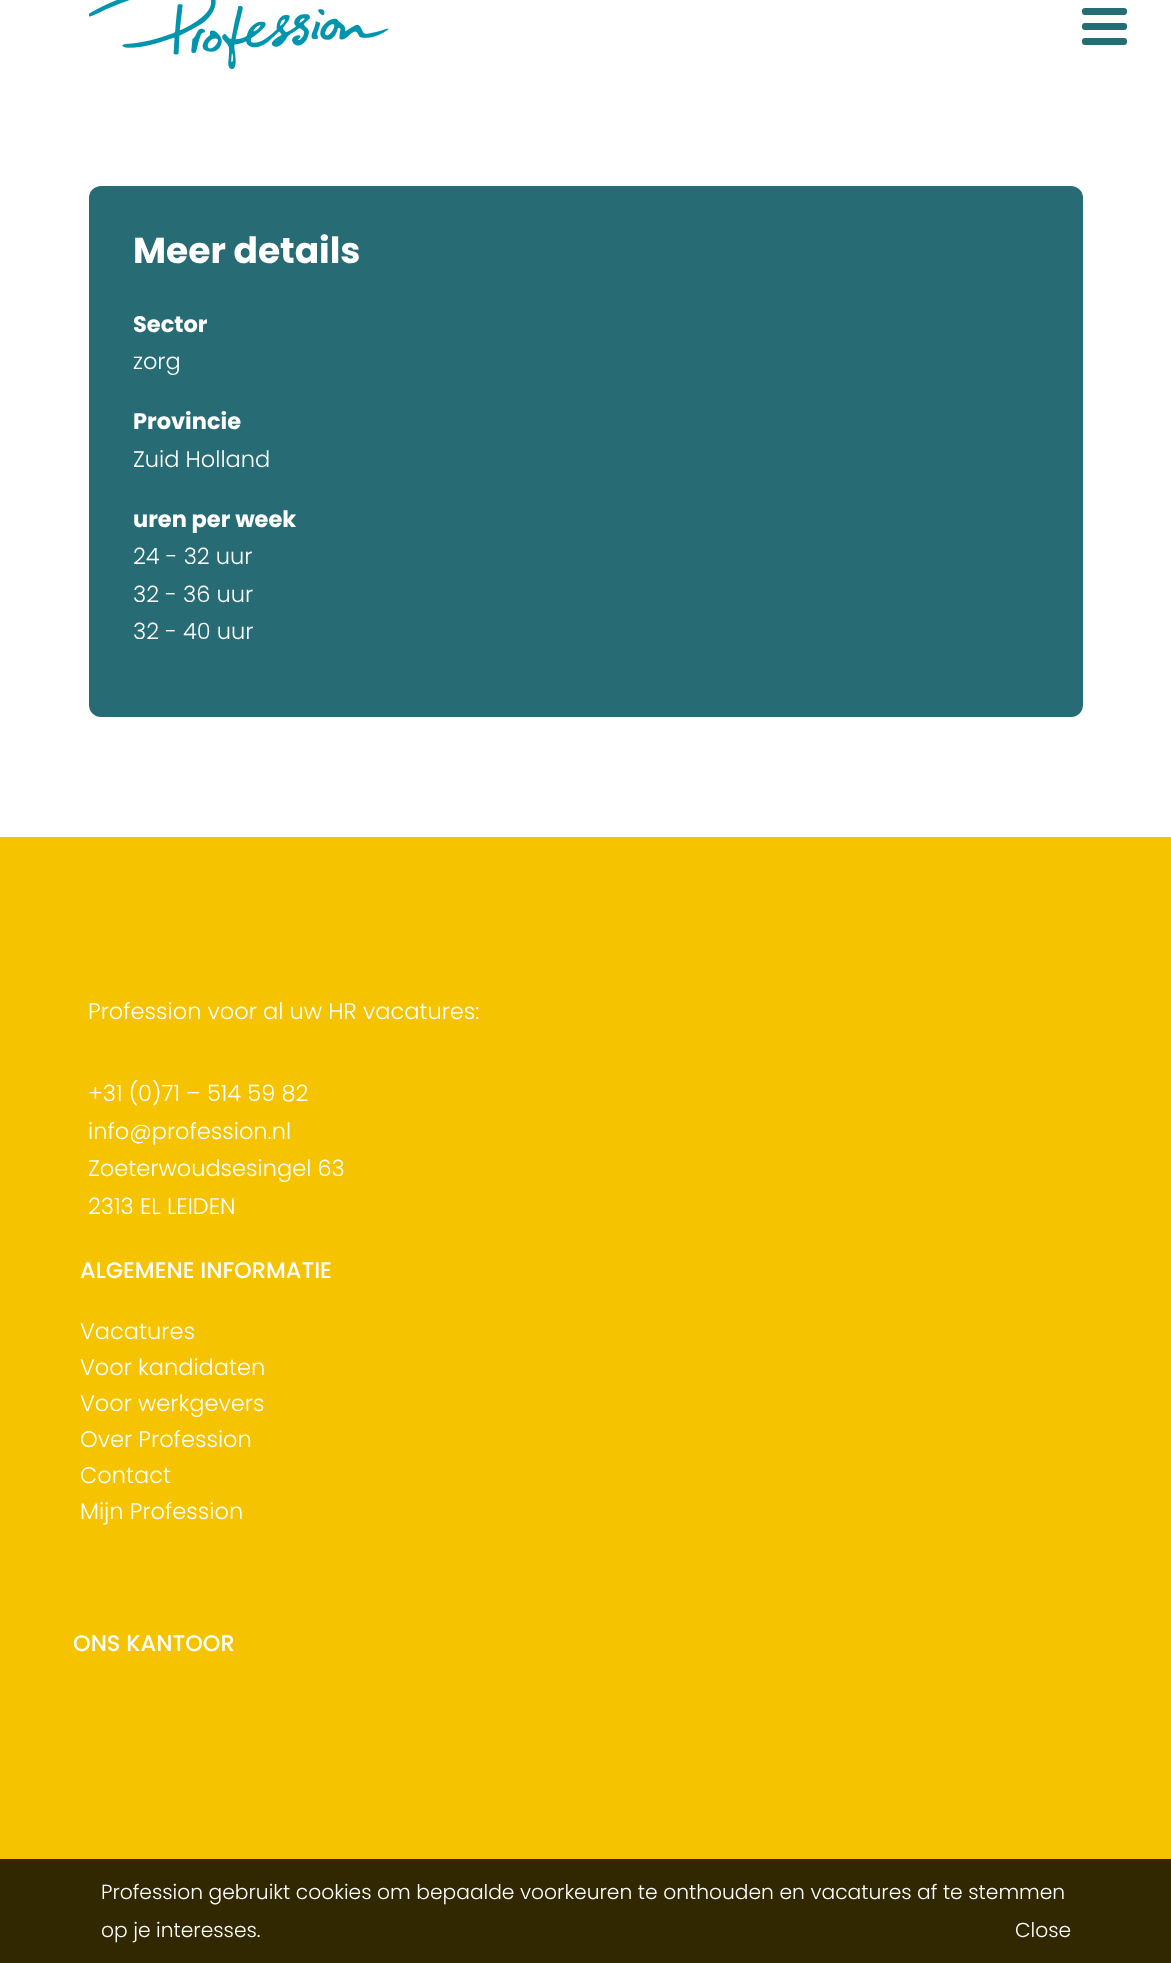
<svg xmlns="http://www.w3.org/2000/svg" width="1171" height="1963">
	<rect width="100%" height="100%" fill="#FFFFFF" />
	<image x="89" y="0" width="300" height="69" href="assets/img1.png" />
	<rect x="1082" y="8" width="45" height="7" rx="3" fill="#276B74" />
	<rect x="1082" y="23" width="45" height="7" rx="3" fill="#276B74" />
	<rect x="1082" y="38" width="45" height="7" rx="3" fill="#276B74" />
	<rect x="89" y="186" width="994" height="531" rx="12" fill="#276B74" />
	<text x="133" y="263" font-family="Poppins" font-size="36" font-weight="700" fill="#FFFFFF">Meer details</text>
	<text x="133" y="332" font-family="Poppins" font-size="22.5" font-weight="700" fill="#FFFFFF">Sector</text>
	<text x="133" y="369" font-family="Poppins" font-size="22.5" font-weight="300" fill="#FFFFFF">zorg</text>
	<text x="133" y="429" font-family="Poppins" font-size="22.5" font-weight="700" fill="#FFFFFF">Provincie</text>
	<text x="133" y="467" font-family="Poppins" font-size="22.5" font-weight="300" fill="#FFFFFF">Zuid Holland</text>
	<text x="133" y="527" font-family="Poppins" font-size="22.5" font-weight="700" fill="#FFFFFF">uren per week</text>
	<g font-family="Poppins" font-size="22.5" font-weight="300" fill="#FFFFFF">
		<text x="133" y="564">24 - 32 uur</text>
		<text x="133" y="602">32 - 36 uur</text>
		<text x="133" y="639">32 - 40 uur</text>
	</g>
	<rect x="0" y="837" width="1171" height="1022" fill="#F6C300" />
	<g font-family="Poppins" font-size="22.5" font-weight="300" fill="#FFFFFF">
		<text x="88" y="1019">Profession voor al uw HR vacatures:</text>
		<text x="88" y="1101">+31 (0)71 – 514 59 82</text>
		<text x="88" y="1139">info@profession.nl</text>
		<text x="88" y="1176">Zoeterwoudsesingel 63</text>
		<text x="88" y="1214">2313 EL LEIDEN</text>
	</g>
	<text x="80" y="1278" font-family="Poppins" font-size="22.5" font-weight="500" fill="#FFFFFF">ALGEMENE INFORMATIE</text>
	<g font-family="Poppins" font-size="22.5" font-weight="300" fill="#FFFFFF">
		<text x="80" y="1339">Vacatures</text>
		<text x="80" y="1375">Voor kandidaten</text>
		<text x="80" y="1411">Voor werkgevers</text>
		<text x="80" y="1447">Over Profession</text>
		<text x="80" y="1483">Contact</text>
		<text x="80" y="1519">Mijn Profession</text>
	</g>
	<text x="73" y="1651" font-family="Poppins" font-size="22.5" font-weight="500" fill="#FFFFFF">ONS KANTOOR</text>
	<rect x="0" y="1859" width="1171" height="104" fill="#312700" />
	<g font-family="Poppins" font-size="20.25" font-weight="300" fill="#FFFFFF">
		<text x="101" y="1899">Profession gebruikt cookies om bepaalde voorkeuren te onthouden en vacatures af te stemmen</text>
		<text x="101" y="1937">op je interesses.</text>
		<text x="1015" y="1937">Close</text>
	</g>
</svg>
